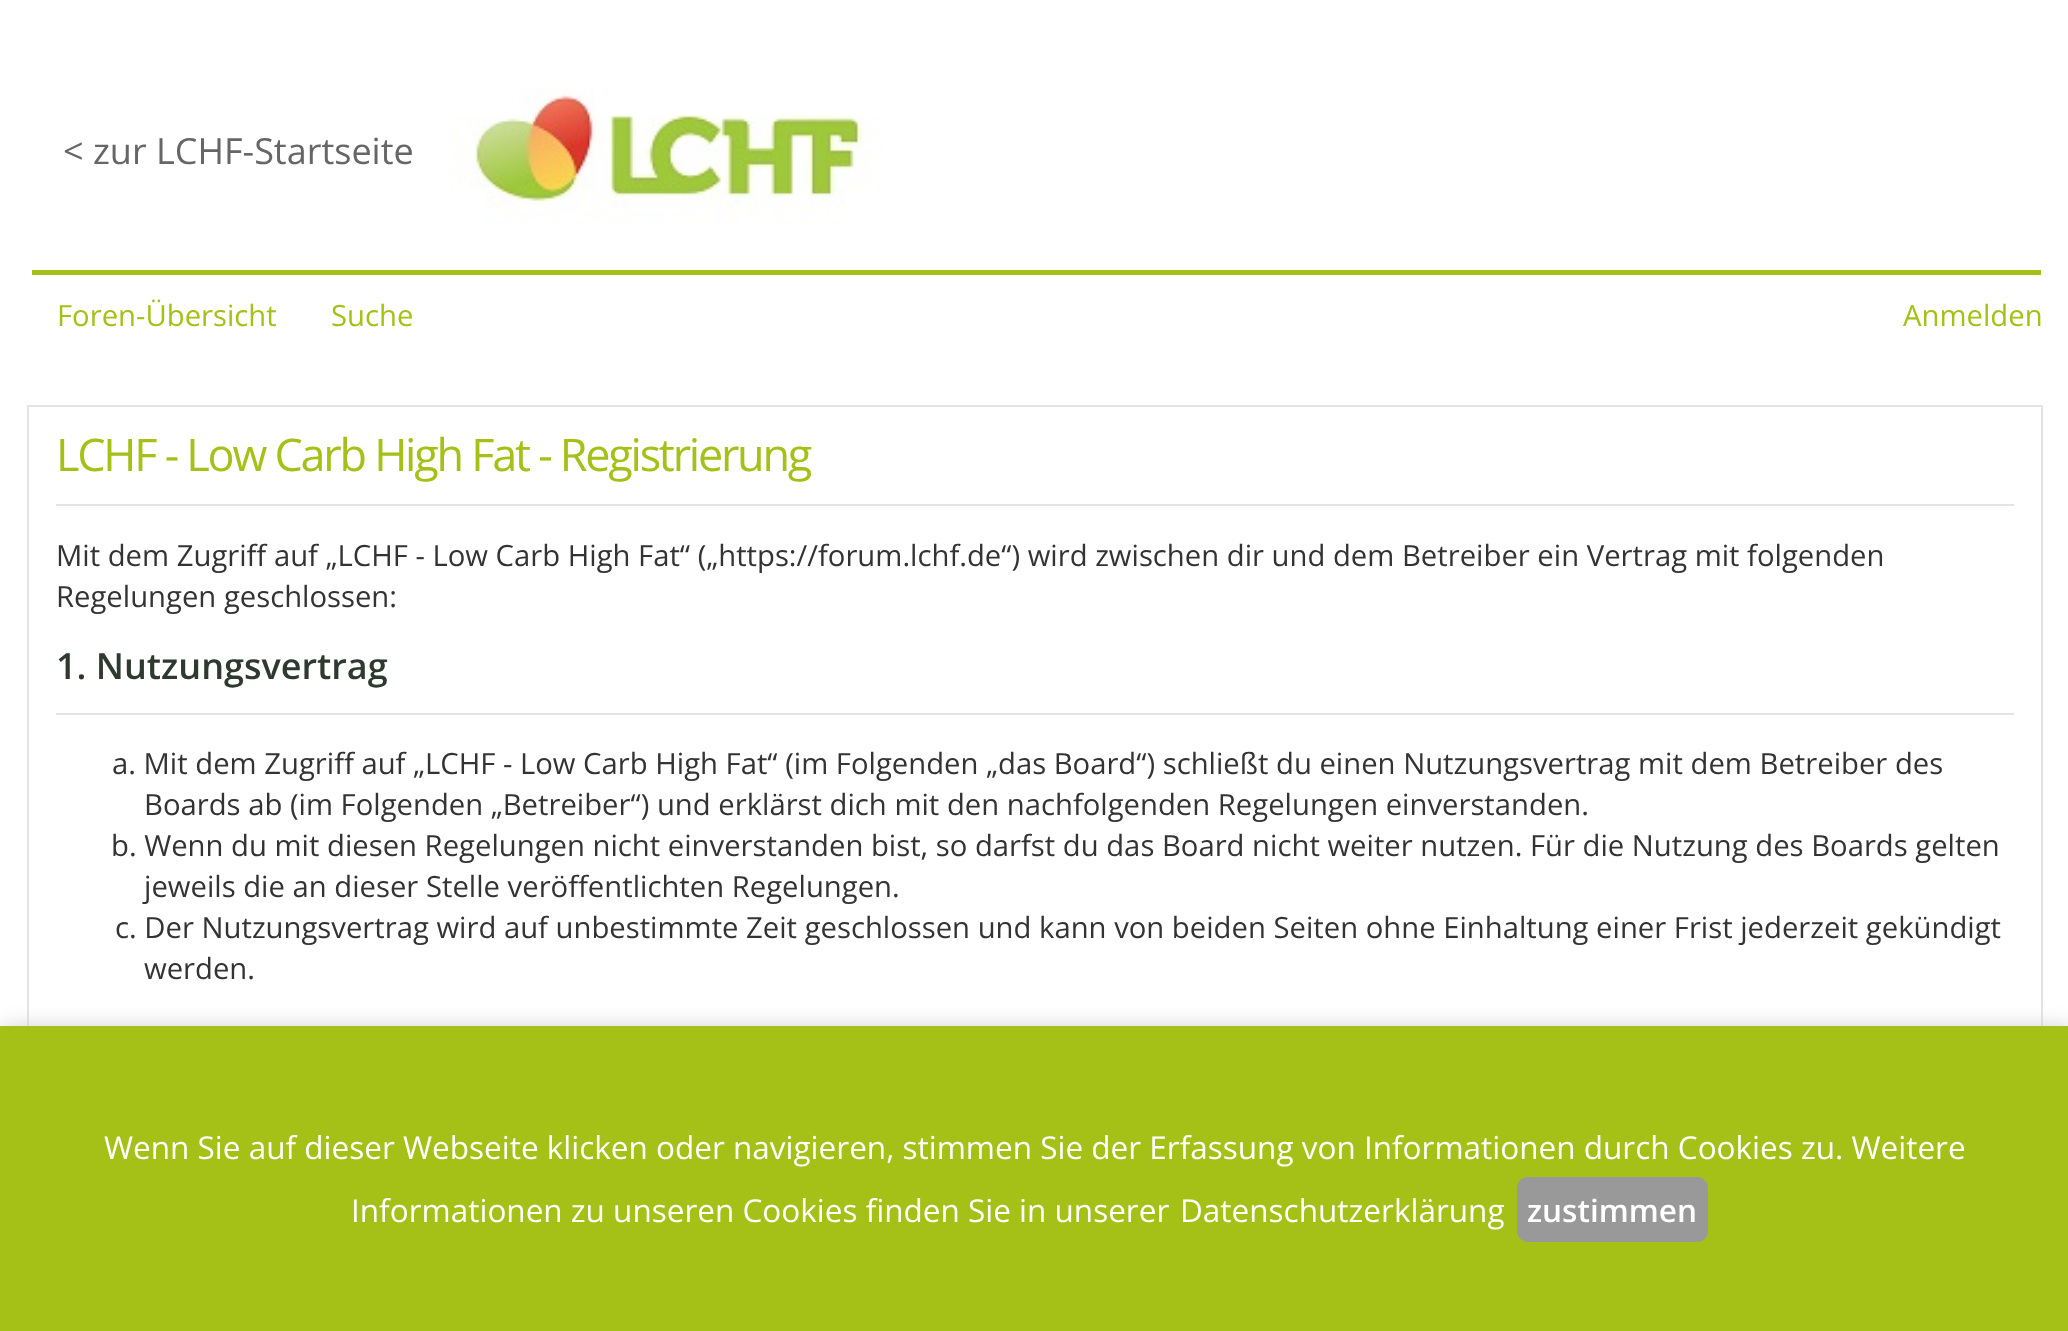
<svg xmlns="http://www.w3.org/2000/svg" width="2068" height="1331">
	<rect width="100%" height="100%" fill="#FFFFFF" />
	<rect x="32" y="270" width="2009" height="5" fill="#A5C117" />
	<text x="63" y="164" font-family="Open Sans" font-size="36" fill="#666666">&lt; zur LCHF-Startseite</text>
	<image x="450" y="88" width="432" height="137" href="assets/img1.png" />
	<g font-family="Open Sans" font-size="29.25" fill="#A5C117">
		<text x="57" y="326">Foren-Übersicht</text>
		<text x="331" y="326">Suche</text>
		<text x="1903" y="326">Anmelden</text>
	</g>
	<rect x="28" y="406" width="2014" height="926" fill="none" stroke="#E4E4E4" stroke-width="2" />
	<rect x="56" y="504" width="1958" height="2" fill="#E4E4E4" />
	<text x="56" y="471" font-family="Open Sans" font-size="45" letter-spacing="-2.25" fill="#A5C117">LCHF - Low Carb High Fat - Registrierung</text>
	<g font-family="Open Sans" font-size="29.25" fill="#333333">
		<text x="56" y="566">Mit dem Zugriff auf „LCHF - Low Carb High Fat“ („https://forum.lchf.de“) wird zwischen dir und dem Betreiber ein Vertrag mit folgenden</text>
		<text x="56" y="607">Regelungen geschlossen:</text>
	</g>
	<rect x="56" y="713" width="1958" height="2" fill="#E4E4E4" />
	<text x="56" y="679" font-family="Open Sans" font-size="36" font-weight="600" fill="#2E392F">1. Nutzungsvertrag</text>
	<g font-family="Open Sans" font-size="29.25" fill="#333333">
		<text x="112" y="774">a. Mit dem Zugriff auf „LCHF - Low Carb High Fat“ (im Folgenden „das Board“) schließt du einen Nutzungsvertrag mit dem Betreiber des</text>
		<text x="144" y="815">Boards ab (im Folgenden „Betreiber“) und erklärst dich mit den nachfolgenden Regelungen einverstanden.</text>
		<text x="111" y="856">b. Wenn du mit diesen Regelungen nicht einverstanden bist, so darfst du das Board nicht weiter nutzen. Für die Nutzung des Boards gelten</text>
		<text x="144" y="897">jeweils die an dieser Stelle veröffentlichten Regelungen.</text>
		<text x="115" y="938">c. Der Nutzungsvertrag wird auf unbestimmte Zeit geschlossen und kann von beiden Seiten ohne Einhaltung einer Frist jederzeit gekündigt</text>
		<text x="144" y="979">werden.</text>
	</g>
	<rect x="2" y="1028" width="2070" height="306" fill="#CCCCCC" filter="blur(11px)" />
	<rect x="0" y="1026" width="2068" height="305" fill="#A5C117" />
	<g font-family="Open Sans" font-size="31.5" fill="#FFFFFF">
		<text x="104" y="1159">Wenn Sie auf dieser Webseite klicken oder navigieren, stimmen Sie der Erfassung von Informationen durch Cookies zu. Weitere</text>
		<text x="351" y="1222">Informationen zu unseren Cookies finden Sie in unserer</text>
		<text x="1180" y="1222">Datenschutzerklärung</text>
	</g>
	<rect x="1517" y="1177" width="191" height="65" rx="11" fill="#999999" />
	<text x="1527" y="1222" font-family="Open Sans" font-size="31.5" font-weight="600" fill="#FFFFFF">zustimmen</text>
</svg>
